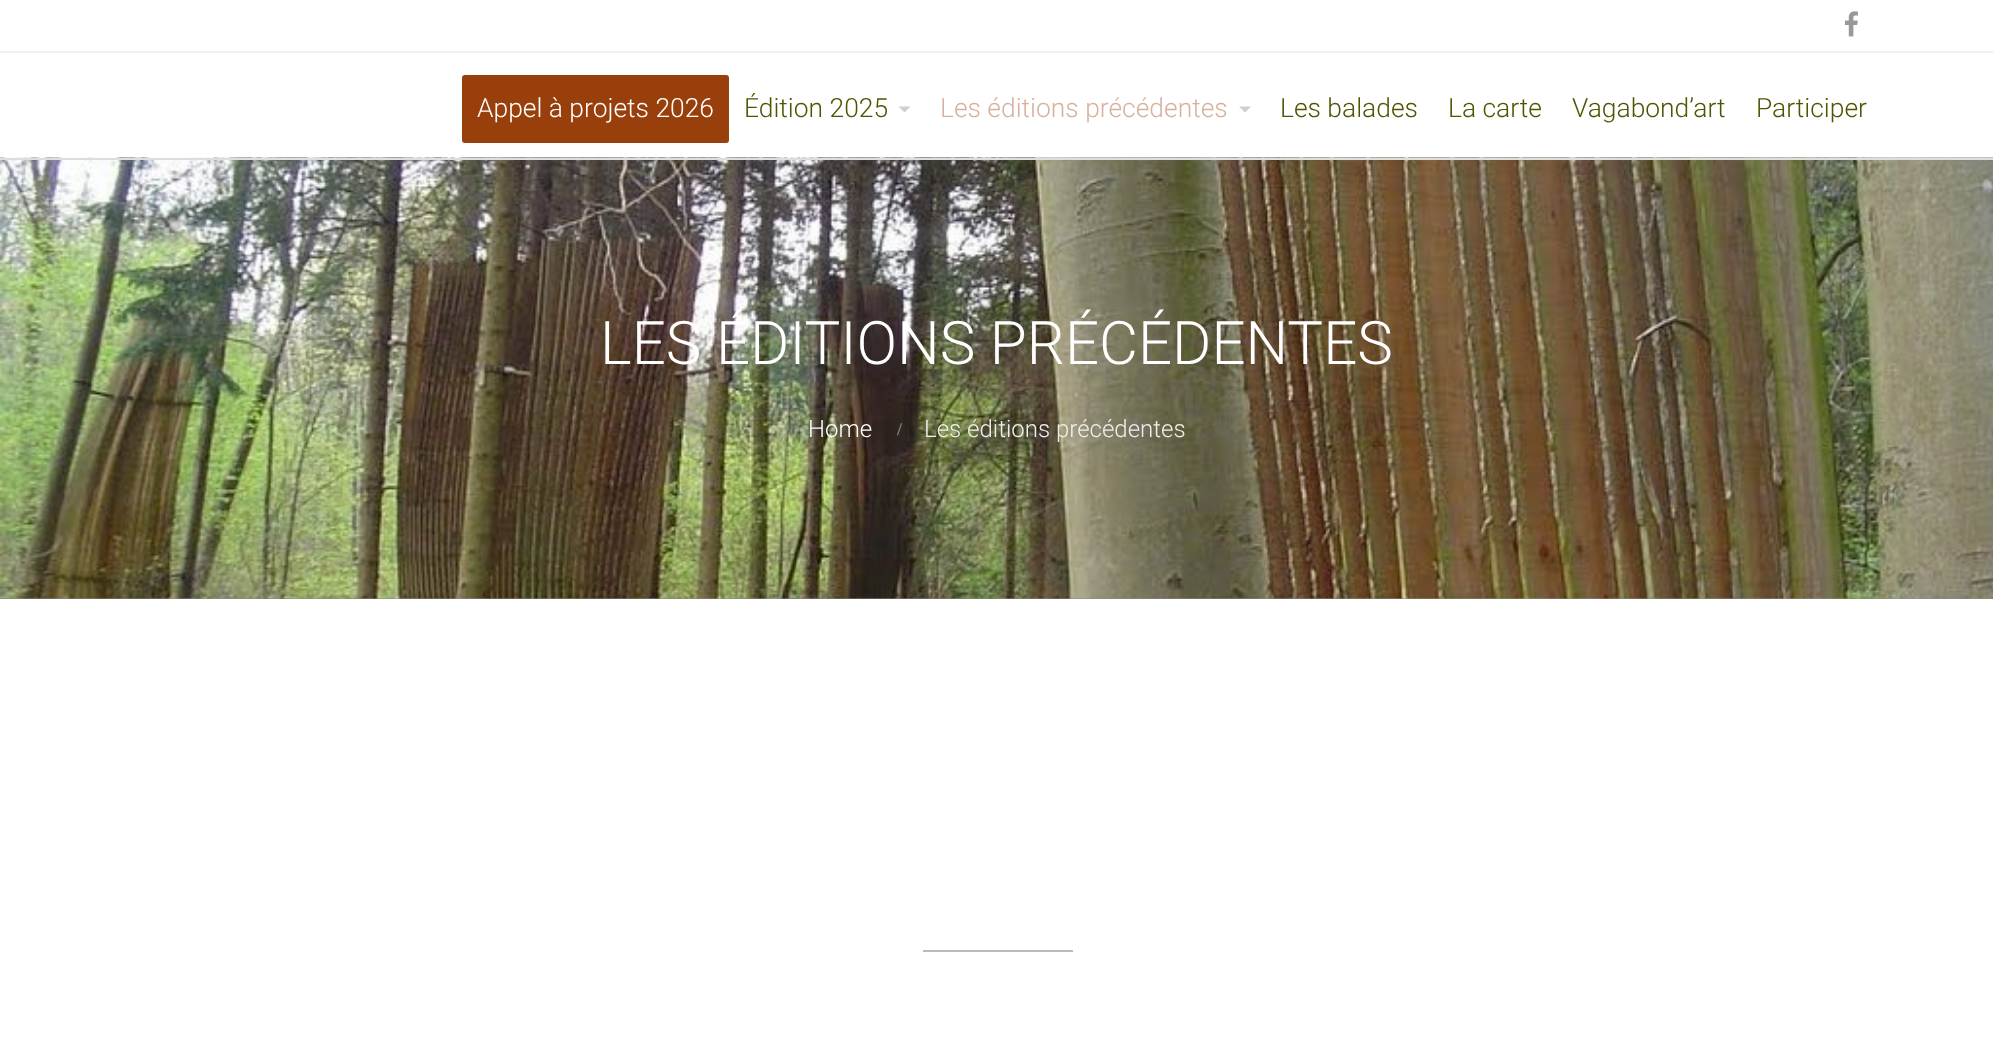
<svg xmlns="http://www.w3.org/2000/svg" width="1993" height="1040">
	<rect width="100%" height="100%" fill="#FFFFFF" />
	<rect x="0" y="51" width="1993" height="2" fill="#F0F0F0" />
	<image x="1844" y="11" width="14" height="26" href="assets/img1.png" />
	<rect x="462" y="75" width="267" height="68" rx="3" fill="#993F0C" />
	<text x="477" y="117" font-family="Roboto" font-size="26.4" font-weight="300" fill="#FFFFFF">Appel à projets 2026</text>
	<text x="744" y="117" font-family="Roboto" font-size="26.4" font-weight="300" fill="#515400">Édition 2025</text>
	<path d="M898.5 106.5H910.5L904.5 112.5Z" fill="#CFCFCF" />
	<text x="940" y="117" font-family="Roboto" font-size="26.4" font-weight="300" fill="#D6B29E">Les éditions précédentes</text>
	<path d="M1239 106.5H1251L1245 112.5Z" fill="#CFCFCF" />
	<g font-family="Roboto" font-size="26.4" font-weight="300" fill="#515400">
		<text x="1280" y="117">Les balades</text>
		<text x="1448" y="117">La carte</text>
		<text x="1572" y="117">Vagabond’art</text>
		<text x="1756" y="117">Participer</text>
	</g>
	<rect x="0" y="598" width="1993" height="1" fill="#8A8A8A" />
	<image x="0" y="157" width="1993" height="442" href="assets/img2.png" />
	<rect x="0" y="158" width="1993" height="2" fill="#DDDDDD" />
	<text x="600" y="364" font-family="Roboto" font-size="60" font-weight="300" fill="#FFFFFF">LES ÉDITIONS PRÉCÉDENTES</text>
	<text x="808" y="437" font-family="Roboto" font-size="24" font-weight="300" fill="#FFFFFF">Home</text>
	<text x="897" y="435" font-family="Liberation Serif" font-size="18" font-weight="700" fill="#86827F">/</text>
	<text x="924" y="437" font-family="Roboto" font-size="24" font-weight="300" fill="#EEEEEE">Les éditions précédentes</text>
	<rect x="923" y="950" width="150" height="2" fill="#BBBBBB" />
</svg>
